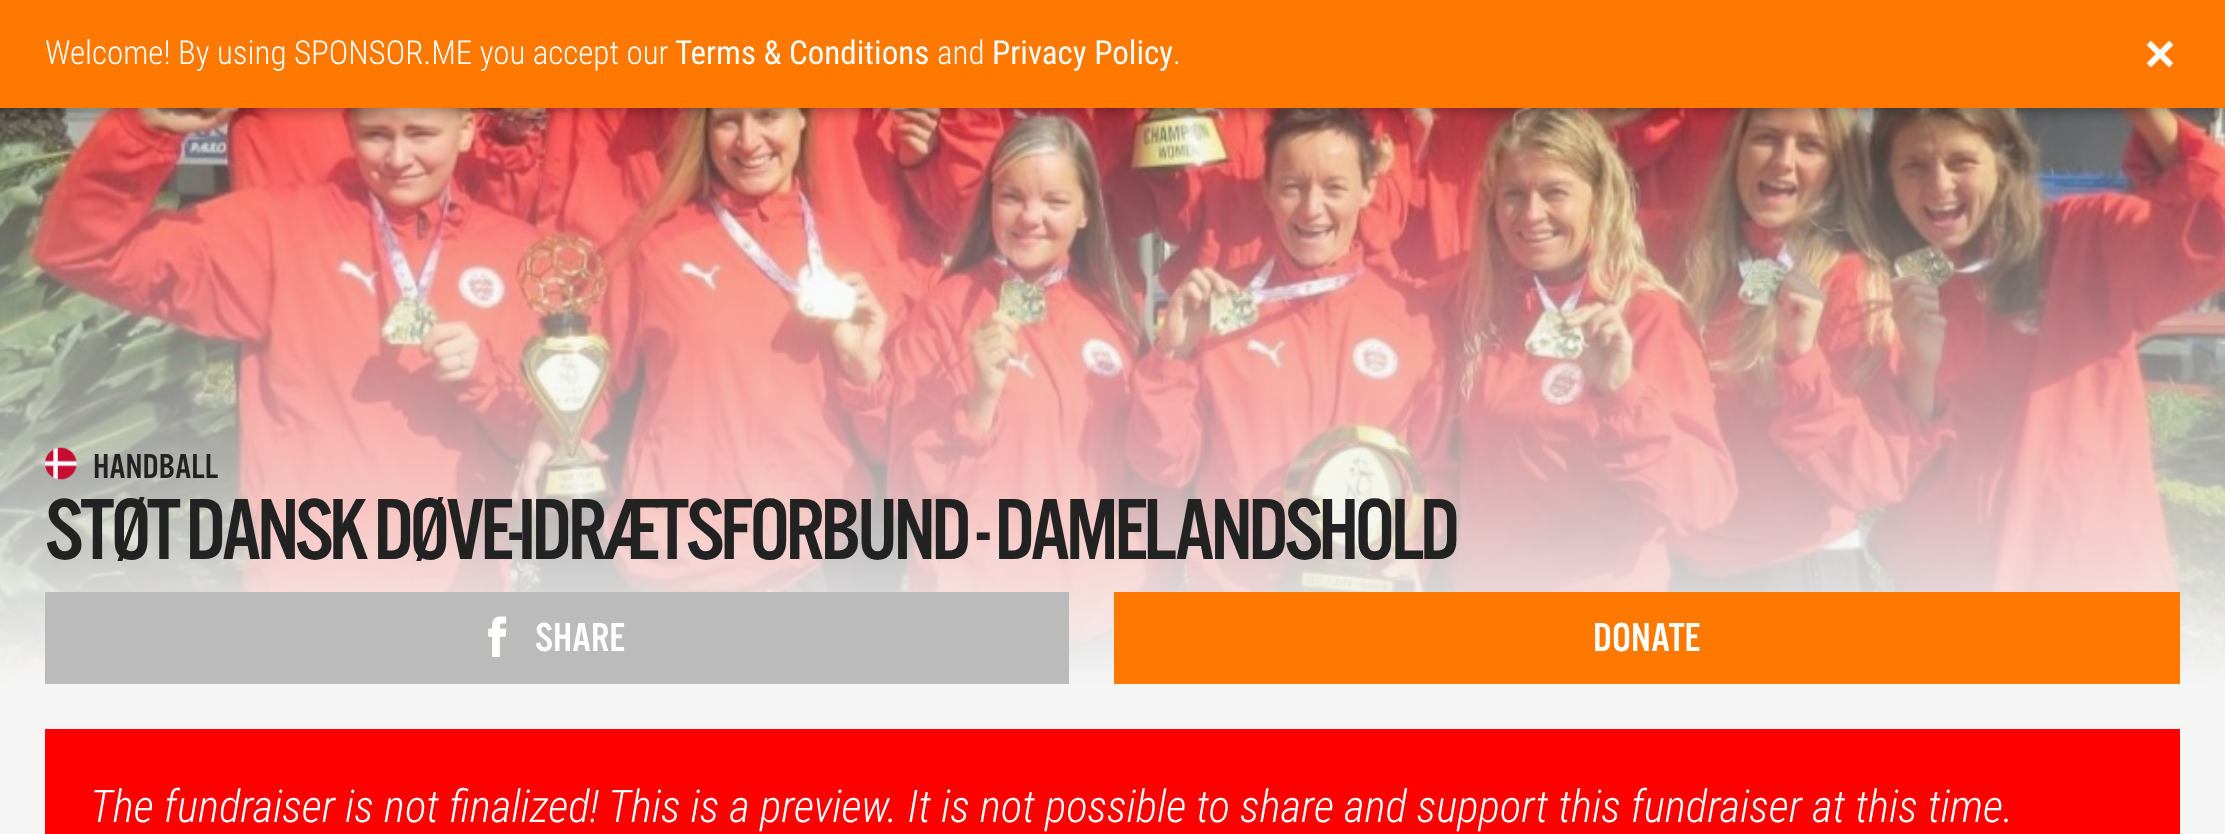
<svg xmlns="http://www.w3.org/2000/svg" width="2225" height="834">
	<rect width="100%" height="100%" fill="#F5F5F5" />
	<image x="0" y="108" width="2225" height="576" href="assets/img2.png" />
	<rect x="0" y="2" width="2225" height="108" fill="#000000" fill-opacity="0.2" filter="blur(4.5px)" />
	<rect x="0" y="0" width="2225" height="108" fill="#FF7800" />
	<text x="45" y="64" font-family="Roboto Condensed" font-size="33" font-weight="300" fill="#FFFFFF">Welcome! By using SPONSOR.ME you accept our</text>
	<text x="675" y="64" font-family="Roboto Condensed" font-size="33" fill="#FFFFFF">Terms &amp; Conditions</text>
	<text x="937" y="64" font-family="Roboto Condensed" font-size="33" font-weight="300" fill="#FFFFFF">and</text>
	<text x="992" y="64" font-family="Roboto Condensed" font-size="33" fill="#FFFFFF">Privacy Policy</text>
	<text x="1173" y="64" font-family="Roboto Condensed" font-size="33" font-weight="300" fill="#FFFFFF">.</text>
	<image x="2146" y="40" width="28" height="28" href="assets/img1.png" />
	<image x="45" y="447" width="32" height="33" href="assets/img3.png" />
	<text x="93" y="478" font-family="'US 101'" font-size="36" fill="#222222">HANDBALL</text>
	<text x="45" y="559" font-family="'US 101'" font-size="90" letter-spacing="-4.5" fill="#222222">STØT DANSK DØVE-IDRÆTSFORBUND - DAMELANDSHOLD</text>
	<rect x="45" y="592" width="1024" height="92" fill="#BBBBBB" />
	<image x="488" y="616" width="19" height="41" href="assets/img4.png" />
	<text x="535" y="651" font-family="'US 101'" font-size="42" fill="#FFFFFF">SHARE</text>
	<rect x="1114" y="592" width="1066" height="92" fill="#FF7800" />
	<text x="1593" y="651" font-family="'US 101'" font-size="42" fill="#FFFFFF">DONATE</text>
	<rect x="45" y="729" width="2135" height="105" fill="#FF0000" />
	<text x="90" y="822" font-family="Roboto Condensed" font-size="45" font-weight="300" font-style="italic" fill="#FFFFFF">The fundraiser is not finalized! This is a preview. It is not possible to share and support this fundraiser at this time.</text>
</svg>
